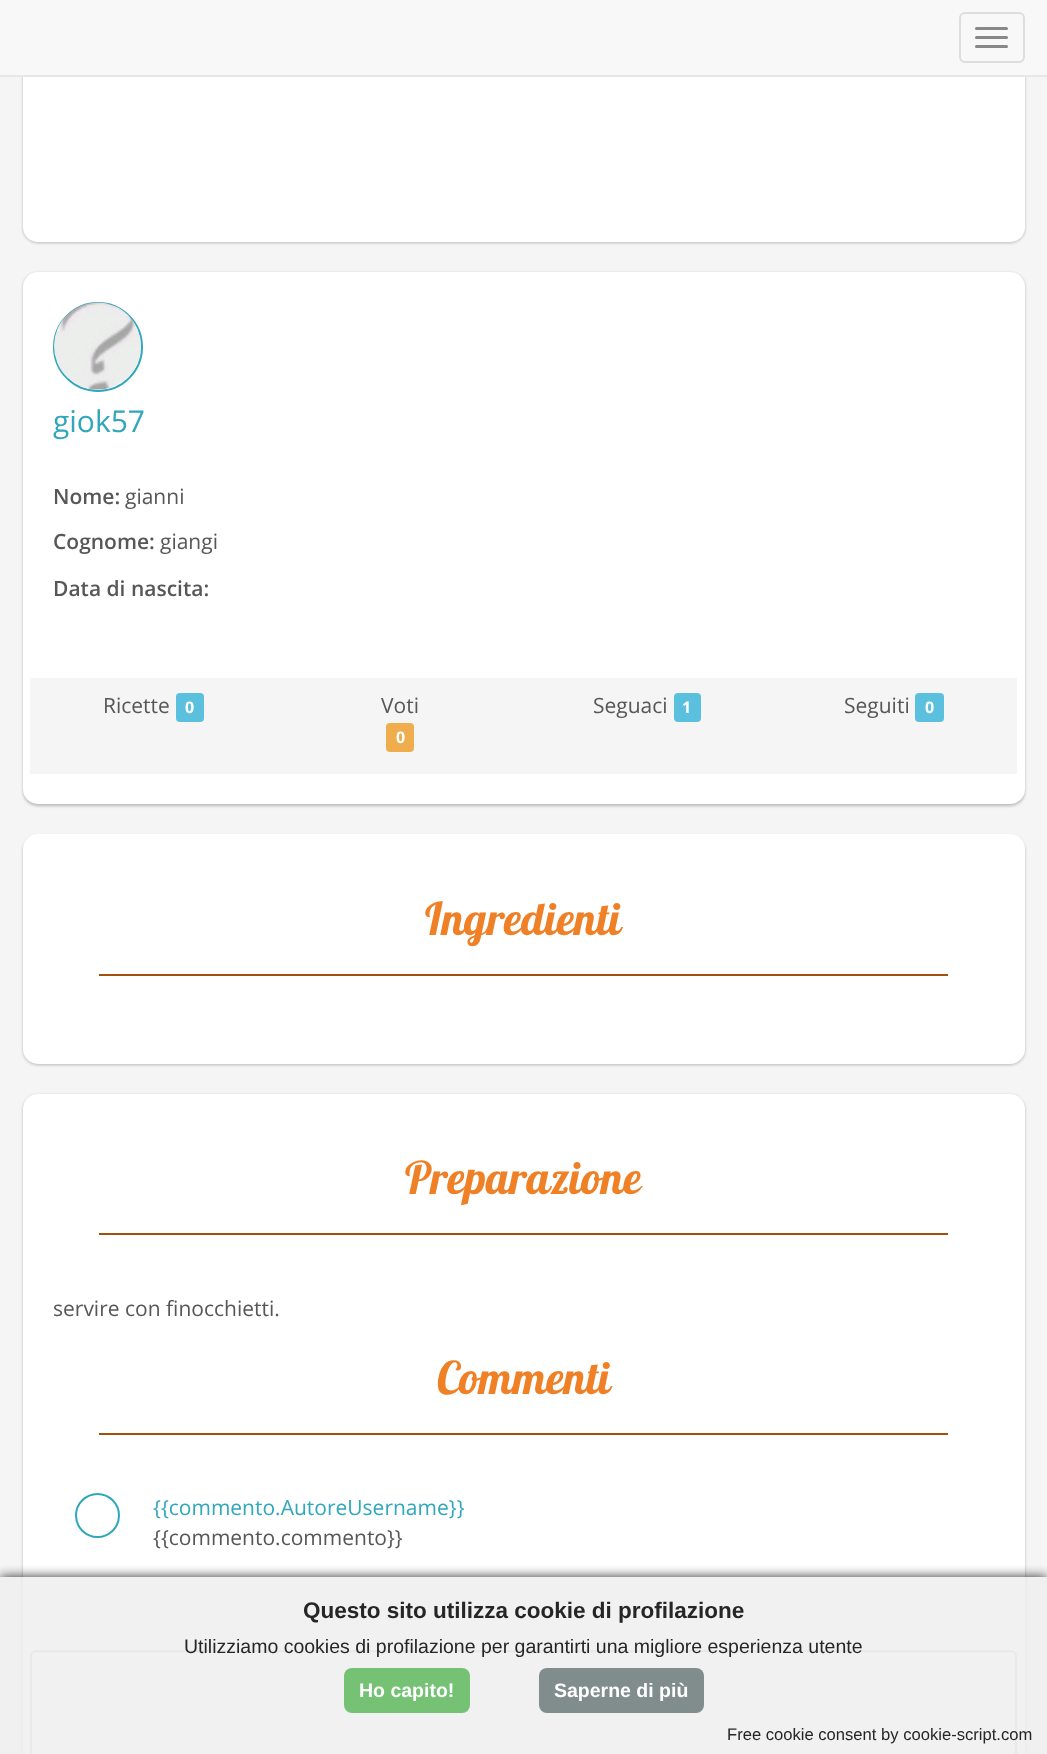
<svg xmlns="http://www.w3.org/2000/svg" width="1047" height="1754">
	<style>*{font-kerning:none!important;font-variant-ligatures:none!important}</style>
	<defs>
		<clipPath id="clip1"><rect x="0" y="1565" width="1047" height="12" /></clipPath>
	</defs>
	<rect width="100%" height="100%" fill="#F5F5F5" />
	<rect x="23" y="-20" width="1002" height="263" rx="15" fill="#000000" fill-opacity="0.24" filter="blur(1.5px)" />
	<path d="M23-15H1025V227C1025 235.5 1018.5 242 1010 242H38C29.5 242 23 235.5 23 227Z" fill="#FFFFFF" />
	<rect x="0" y="0" width="1047" height="75" fill="#F8F8F8" />
	<rect x="0" y="75" width="1047" height="2" fill="#E7E7E7" />
	<rect x="960" y="13" width="64" height="49" rx="5" fill="none" stroke="#DDDDDD" stroke-width="2" />
	<rect x="975" y="27" width="33" height="3" rx="1.5" fill="#888888" />
	<rect x="975" y="36" width="33" height="3" rx="1.5" fill="#888888" />
	<rect x="975" y="45" width="33" height="3" rx="1.5" fill="#888888" />
	<rect x="23" y="273" width="1002" height="533" rx="15" fill="#000000" fill-opacity="0.24" filter="blur(1.5px)" />
	<rect x="23" y="272" width="1002" height="532" rx="15" fill="#FFFFFF" />
	<circle cx="98" cy="347" r="44" fill="none" stroke="#31A7BC" stroke-width="2" />
	<image x="54" y="302" width="87" height="88" href="assets/img1.png" />
	<text x="53" y="432" font-family="Open Sans" font-size="30" fill="#31A7BC">giok57</text>
	<text x="53" y="504" font-family="Open Sans" font-size="21" font-weight="600" fill="#575756">Nome:</text>
	<text x="125" y="504" font-family="Open Sans" font-size="21" fill="#575756">gianni</text>
	<text x="53" y="549" font-family="Open Sans" font-size="21" font-weight="600" fill="#575756">Cognome:</text>
	<text x="160" y="549" font-family="Open Sans" font-size="21" fill="#575756">giangi</text>
	<text x="53" y="596" font-family="Open Sans" font-size="21" font-weight="600" fill="#575756">Data di nascita:</text>
	<rect x="30" y="678" width="987" height="96" fill="#F5F5F5" />
	<text x="103" y="713" font-family="Open Sans" font-size="21" fill="#575756">Ricette</text>
	<rect x="176" y="693" width="28" height="29" rx="4" fill="#5BC0DE" />
	<text x="185" y="713" font-family="Open Sans" font-size="16" font-weight="700" fill="#FFFFFF">0</text>
	<text x="381" y="713" font-family="Open Sans" font-size="21" fill="#575756">Voti</text>
	<rect x="386" y="723" width="28" height="29" rx="4" fill="#F0AD4E" />
	<text x="396" y="743" font-family="Open Sans" font-size="16" font-weight="700" fill="#FFFFFF">0</text>
	<text x="593" y="713" font-family="Open Sans" font-size="21" fill="#575756">Seguaci</text>
	<rect x="674" y="693" width="27" height="29" rx="4" fill="#5BC0DE" />
	<text x="682" y="713" font-family="Open Sans" font-size="16" font-weight="700" fill="#FFFFFF">1</text>
	<text x="844" y="713" font-family="Open Sans" font-size="21" fill="#575756">Seguiti</text>
	<rect x="915" y="693" width="29" height="29" rx="4" fill="#5BC0DE" />
	<text x="925" y="713" font-family="Open Sans" font-size="16" font-weight="700" fill="#FFFFFF">0</text>
	<rect x="23" y="836" width="1002" height="229" rx="15" fill="#000000" fill-opacity="0.24" filter="blur(1.5px)" />
	<rect x="23" y="834" width="1002" height="230" rx="15" fill="#FFFFFF" />
	<text x="425" y="935" font-family="Lobster" font-size="45" fill="#EF8026">Ingredienti</text>
	<rect x="99" y="974" width="849" height="2" fill="#A3500D" />
	<rect x="23" y="1095" width="1002" height="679" rx="15" fill="#000000" fill-opacity="0.24" filter="blur(1.5px)" />
	<rect x="23" y="1094" width="1002" height="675" rx="15" fill="#FFFFFF" />
	<text x="405" y="1194" font-family="Lobster" font-size="45" fill="#EF8026">Preparazione</text>
	<rect x="99" y="1233" width="849" height="2" fill="#A3500D" />
	<text x="53" y="1316" font-family="Open Sans" font-size="21" fill="#575756">servire con finocchietti.</text>
	<text x="437" y="1394" font-family="Lobster" font-size="45" fill="#EF8026">Commenti</text>
	<rect x="99" y="1433" width="849" height="2" fill="#A3500D" />
	<circle cx="97.5" cy="1515.5" r="21.5" fill="none" stroke="#31A7BC" stroke-width="2" />
	<text x="153" y="1515" font-family="Open Sans" font-size="21" fill="#31A7BC">{{commento.AutoreUsername}}</text>
	<text x="153" y="1545" font-family="Open Sans" font-size="21" fill="#575756">{{commento.commento}}</text>
	<path d="M36 1653H1011C1013 1653 1016 1655 1016 1658C1016 1655 1014 1652 1011 1652H37C34 1652 32 1655 32 1658C32 1655 34 1653 36 1653Z" fill="#ECECEC" />
	<rect x="31" y="1651" width="985" height="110" rx="5" fill="none" stroke="#CCCCCC" stroke-width="2" />
	<g clip-path="url(#clip1)">
		<rect x="0" y="1577" width="1047" height="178" fill="#000000" fill-opacity="0.84" filter="blur(6px)" />
	</g>
	<rect x="0" y="1577" width="1047" height="177" fill="#EEEEEE" fill-opacity="0.84" />
	<text x="303" y="1618" font-family="Liberation Sans" font-size="22.5" font-weight="700" fill="#262626">Questo sito utilizza cookie di profilazione</text>
	<text x="184" y="1653" font-family="Liberation Sans" font-size="19.5" fill="#262626">Utilizziamo cookies di profilazione per garantirti una migliore esperienza utente</text>
	<rect x="344" y="1668" width="126" height="45" rx="8" fill="#75C275" />
	<text x="359" y="1697" font-family="Liberation Sans" font-size="19.5" font-weight="700" fill="#FFFFFF">Ho capito!</text>
	<rect x="539" y="1668" width="165" height="45" rx="8" fill="#818C8C" />
	<text x="554" y="1697" font-family="Liberation Sans" font-size="19.5" font-weight="700" fill="#FFFFFF">Saperne di più</text>
	<text x="727" y="1740" font-family="Liberation Sans" font-size="16.6" fill="#262626">Free cookie consent by cookie-script.com</text>
</svg>
